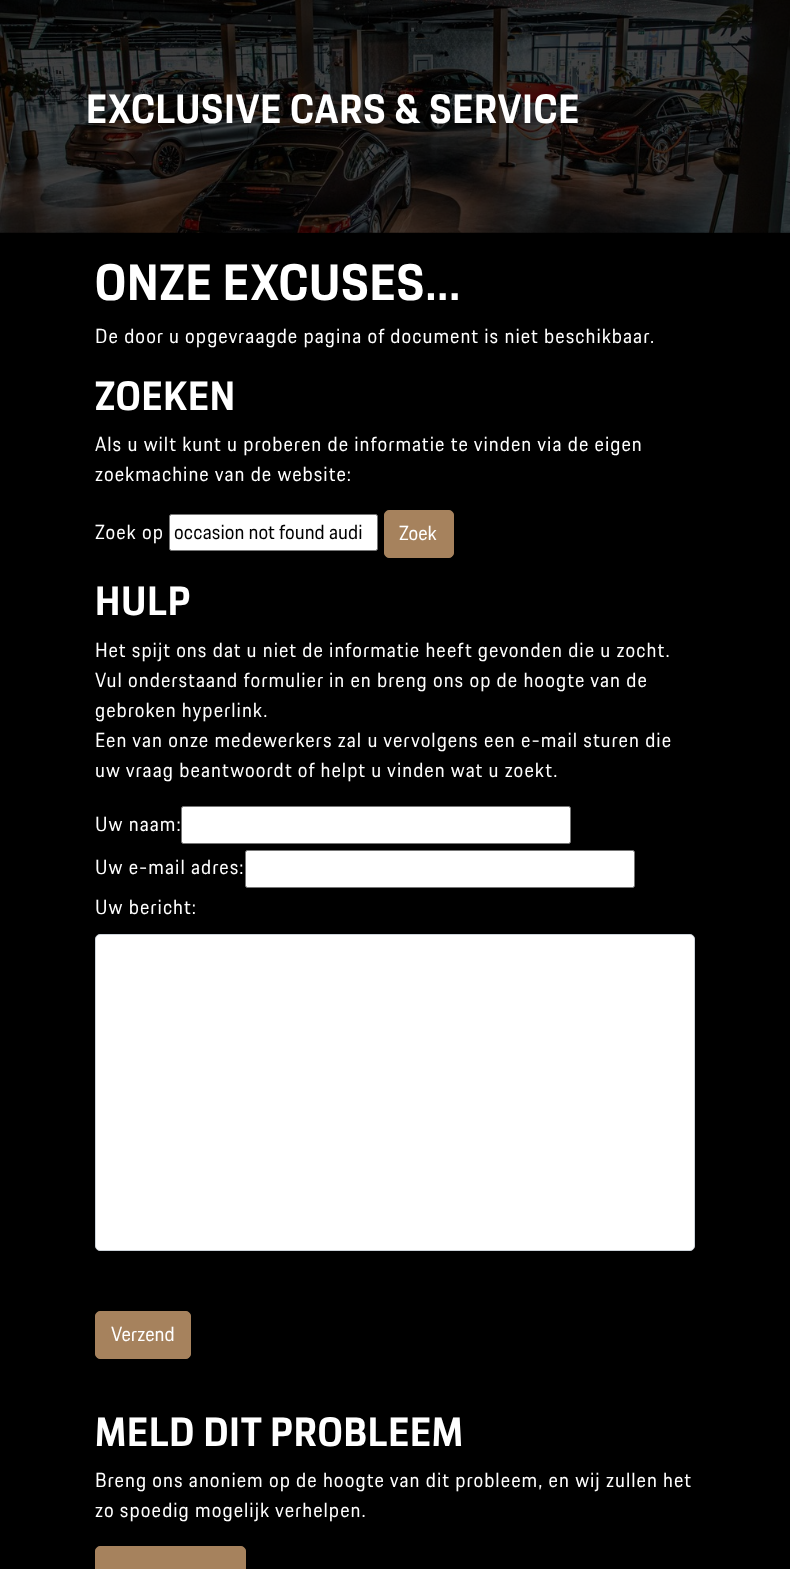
<svg xmlns="http://www.w3.org/2000/svg" width="790" height="1569">
	<rect width="100%" height="100%" fill="#000000" />
	<image x="0" y="0" width="790" height="233" href="assets/img1.png" />
	<text x="86" y="123" font-family="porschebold" font-size="40" font-weight="700" letter-spacing="1" fill="#FFFFFF">EXCLUSIVE CARS &amp; SERVICE</text>
	<text x="95" y="300" font-family="porschebold" font-size="50" font-weight="700" letter-spacing="1" fill="#FFFFFF">ONZE EXCUSES...</text>
	<text x="95" y="343" font-family="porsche" font-size="20" letter-spacing="1" fill="#FFFFFF">De door u opgevraagde pagina of document is niet beschikbaar.</text>
	<text x="95" y="410" font-family="porschebold" font-size="40" font-weight="700" letter-spacing="1" fill="#FFFFFF">ZOEKEN</text>
	<g font-family="porsche" font-size="20" letter-spacing="1" fill="#FFFFFF">
		<text x="95" y="451">Als u wilt kunt u proberen de informatie te vinden via de eigen</text>
		<text x="95" y="481">zoekmachine van de website:</text>
		<text x="95" y="539">Zoek op</text>
	</g>
	<rect x="169.5" y="514.5" width="208" height="36" rx="2" fill="#FFFFFF" stroke="#767676" />
	<text x="174" y="539" font-family="porsche" font-size="20" fill="#000000">occasion not found audi</text>
	<rect x="384.5" y="510.5" width="69" height="47" rx="4.5" fill="#A6825D" stroke="#A6825D" />
	<text x="399" y="540" font-family="porsche" font-size="20" fill="#FFFFFF">Zoek</text>
	<text x="95" y="615" font-family="porschebold" font-size="40" font-weight="700" letter-spacing="1" fill="#FFFFFF">HULP</text>
	<g font-family="porsche" font-size="20" letter-spacing="1" fill="#FFFFFF">
		<text x="95" y="657">Het spijt ons dat u niet de informatie heeft gevonden die u zocht.</text>
		<text x="95" y="687">Vul onderstaand formulier in en breng ons op de hoogte van de</text>
		<text x="95" y="717">gebroken hyperlink.</text>
		<text x="95" y="747">Een van onze medewerkers zal u vervolgens een e-mail sturen die</text>
		<text x="95" y="777">uw vraag beantwoordt of helpt u vinden wat u zoekt.</text>
		<text x="95" y="831">Uw naam:</text>
	</g>
	<rect x="181.5" y="806.5" width="389" height="37" rx="2" fill="#FFFFFF" stroke="#767676" />
	<text x="95" y="874" font-family="porsche" font-size="20" letter-spacing="1" fill="#FFFFFF">Uw e-mail adres:</text>
	<rect x="245.5" y="850.5" width="389" height="37" rx="2" fill="#FFFFFF" stroke="#767676" />
	<text x="95" y="914" font-family="porsche" font-size="20" letter-spacing="1" fill="#FFFFFF">Uw bericht:</text>
	<rect x="95.5" y="934.5" width="599" height="316" rx="4.5" fill="#FFFFFF" stroke="#CED4DA" />
	<rect x="95.5" y="1311.5" width="95" height="47" rx="4.5" fill="#A6825D" stroke="#A6825D" />
	<text x="111" y="1341" font-family="porsche" font-size="20" fill="#FFFFFF">Verzend</text>
	<text x="95" y="1446" font-family="porschebold" font-size="40" font-weight="700" letter-spacing="1" fill="#FFFFFF">MELD DIT PROBLEEM</text>
	<g font-family="porsche" font-size="20" letter-spacing="1" fill="#FFFFFF">
		<text x="95" y="1487">Breng ons anoniem op de hoogte van dit probleem, en wij zullen het</text>
		<text x="95" y="1517">zo spoedig mogelijk verhelpen.</text>
	</g>
	<rect x="95.5" y="1546.5" width="150" height="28" rx="4.5" fill="#A6825D" stroke="#A6825D" />
</svg>
